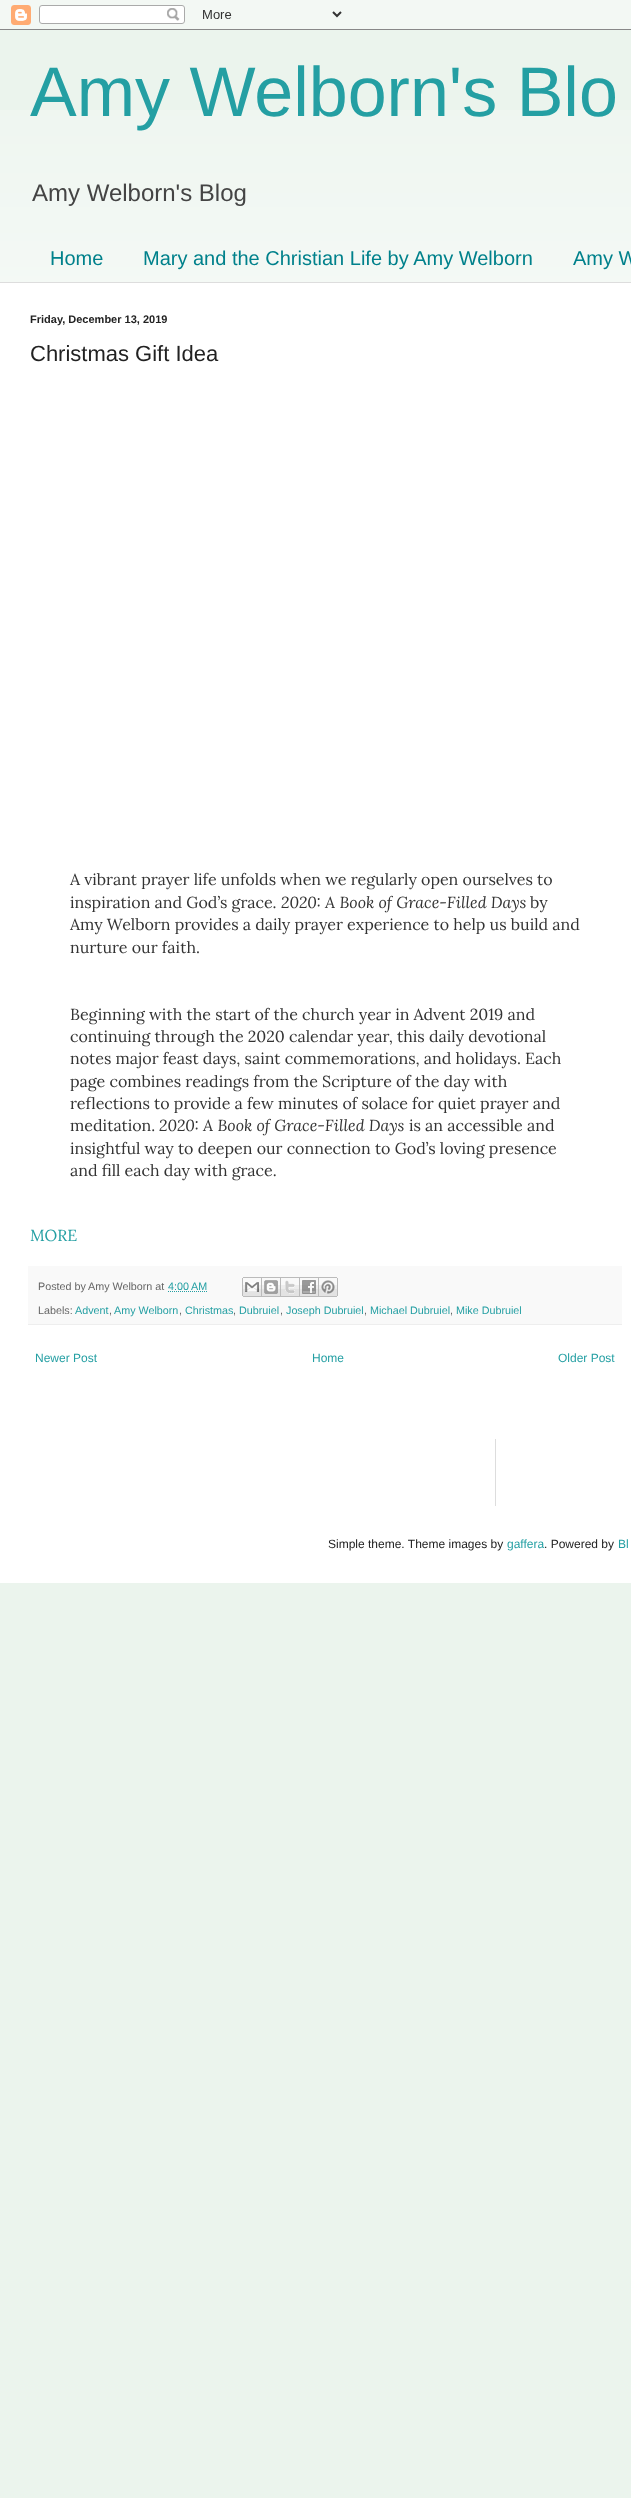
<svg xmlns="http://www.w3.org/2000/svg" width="631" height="2498">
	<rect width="100%" height="100%" fill="#EBF4ED" />
	<image x="0" y="0" width="631" height="30" href="assets/img1.png" />
	<image x="0" y="110" width="631" height="172" href="assets/img7.png" />
	<text x="30" y="116" font-family="Liberation Sans" font-size="70" fill="#249FA3">Amy Welborn's Blo</text>
	<text x="32" y="201" font-family="Liberation Sans" font-size="24" fill="#444444">Amy Welborn's Blog</text>
	<g font-family="Liberation Sans" font-size="20" fill="#00818B">
		<text x="50" y="265">Home</text>
		<text x="143" y="265">Mary and the Christian Life by Amy Welborn</text>
		<text x="573" y="265">Amy W</text>
	</g>
	<rect x="0" y="283" width="631" height="1300" fill="#FFFFFF" />
	<rect x="0" y="282" width="631" height="1" fill="#DDDDDD" />
	<text x="30" y="323" font-family="Liberation Sans" font-size="11" font-weight="700" fill="#222222">Friday, December 13, 2019</text>
	<text x="30" y="361" font-family="Liberation Sans" font-size="22" fill="#222222">Christmas Gift Idea</text>
	<g font-family="Lora" font-size="16" fill="#333333">
		<text x="70" y="885">A vibrant prayer life unfolds when we regularly open ourselves to</text>
		<text x="70" y="908">inspiration and God’s grace.</text>
	</g>
	<text x="281" y="908" font-family="Lora" font-size="16" font-style="italic" fill="#333333">2020: A Book of Grace-Filled Days</text>
	<g font-family="Lora" font-size="16" fill="#333333">
		<text x="530" y="908">by</text>
		<text x="70" y="930">Amy Welborn provides a daily prayer experience to help us build and</text>
		<text x="70" y="953">nurture our faith.</text>
		<text x="70" y="1020">Beginning with the start of the church year in Advent 2019 and</text>
		<text x="70" y="1042">continuing through the 2020 calendar year, this daily devotional</text>
		<text x="70" y="1064">notes major feast days, saint commemorations, and holidays. Each</text>
		<text x="70" y="1087">page combines readings from the Scripture of the day with</text>
		<text x="70" y="1109">reflections to provide a few minutes of solace for quiet prayer and</text>
		<text x="70" y="1131">meditation.</text>
	</g>
	<text x="159" y="1131" font-family="Lora" font-size="16" font-style="italic" fill="#333333">2020: A Book of Grace-Filled Days</text>
	<g font-family="Lora" font-size="16" fill="#333333">
		<text x="409" y="1131">is an accessible and</text>
		<text x="70" y="1154">insightful way to deepen our connection to God’s loving presence</text>
		<text x="70" y="1176">and fill each day with grace.</text>
	</g>
	<text x="30" y="1241" font-family="Lora" font-size="16" fill="#249FA3">MORE</text>
	<rect x="28" y="1266" width="594" height="58" fill="#F9F9F9" />
	<rect x="28" y="1324" width="594" height="1" fill="#EEEEEE" />
	<g font-family="Liberation Sans" font-size="10.75" fill="#666666">
		<text x="38" y="1290">Posted by</text>
		<text x="88" y="1290">Amy Welborn at</text>
	</g>
	<text x="168" y="1290" font-family="Liberation Sans" font-size="10.75" fill="#249FA3">4:00 AM</text>
	<path d="M168 1291.5H207.5" fill="none" stroke="#249FA3" stroke-dasharray="1 1" />
	<image x="242" y="1277" width="20" height="20" href="assets/img2.png" />
	<image x="262" y="1277" width="19" height="20" href="assets/img3.png" />
	<image x="281" y="1277" width="19" height="20" href="assets/img4.png" />
	<image x="300" y="1277" width="19" height="20" href="assets/img5.png" />
	<image x="319" y="1277" width="19" height="20" href="assets/img6.png" />
	<text x="38" y="1314" font-family="Liberation Sans" font-size="10.75" fill="#666666">Labels:</text>
	<text x="75" y="1314" font-family="Liberation Sans" font-size="10.75" fill="#249FA3">Advent</text>
	<text x="109" y="1314" font-family="Liberation Sans" font-size="10.75" fill="#666666">,</text>
	<text x="114" y="1314" font-family="Liberation Sans" font-size="10.75" fill="#249FA3">Amy Welborn</text>
	<text x="179" y="1314" font-family="Liberation Sans" font-size="10.75" fill="#666666">,</text>
	<text x="185" y="1314" font-family="Liberation Sans" font-size="10.75" fill="#249FA3">Christmas</text>
	<text x="233" y="1314" font-family="Liberation Sans" font-size="10.75" fill="#666666">,</text>
	<text x="239" y="1314" font-family="Liberation Sans" font-size="10.75" fill="#249FA3">Dubruiel</text>
	<text x="280" y="1314" font-family="Liberation Sans" font-size="10.75" fill="#666666">,</text>
	<text x="286" y="1314" font-family="Liberation Sans" font-size="10.75" fill="#249FA3">Joseph Dubruiel</text>
	<text x="364" y="1314" font-family="Liberation Sans" font-size="10.75" fill="#666666">,</text>
	<text x="370" y="1314" font-family="Liberation Sans" font-size="10.75" fill="#249FA3">Michael Dubruiel</text>
	<text x="450" y="1314" font-family="Liberation Sans" font-size="10.75" fill="#666666">,</text>
	<text x="456" y="1314" font-family="Liberation Sans" font-size="10.75" fill="#249FA3">Mike Dubruiel</text>
	<g font-family="Liberation Sans" font-size="12" fill="#249FA3">
		<text x="35" y="1362">Newer Post</text>
		<text x="312" y="1362">Home</text>
		<text x="558" y="1362">Older Post</text>
	</g>
	<rect x="495" y="1439" width="1" height="67" fill="#DDDDDD" />
	<text x="328" y="1548" font-family="Liberation Sans" font-size="12" fill="#222222">Simple theme. Theme images by</text>
	<text x="507" y="1548" font-family="Liberation Sans" font-size="12" fill="#249FA3">gaffera</text>
	<text x="544" y="1548" font-family="Liberation Sans" font-size="12" fill="#222222">. Powered by</text>
	<text x="618" y="1548" font-family="Liberation Sans" font-size="12" fill="#249FA3">Bl</text>
</svg>
